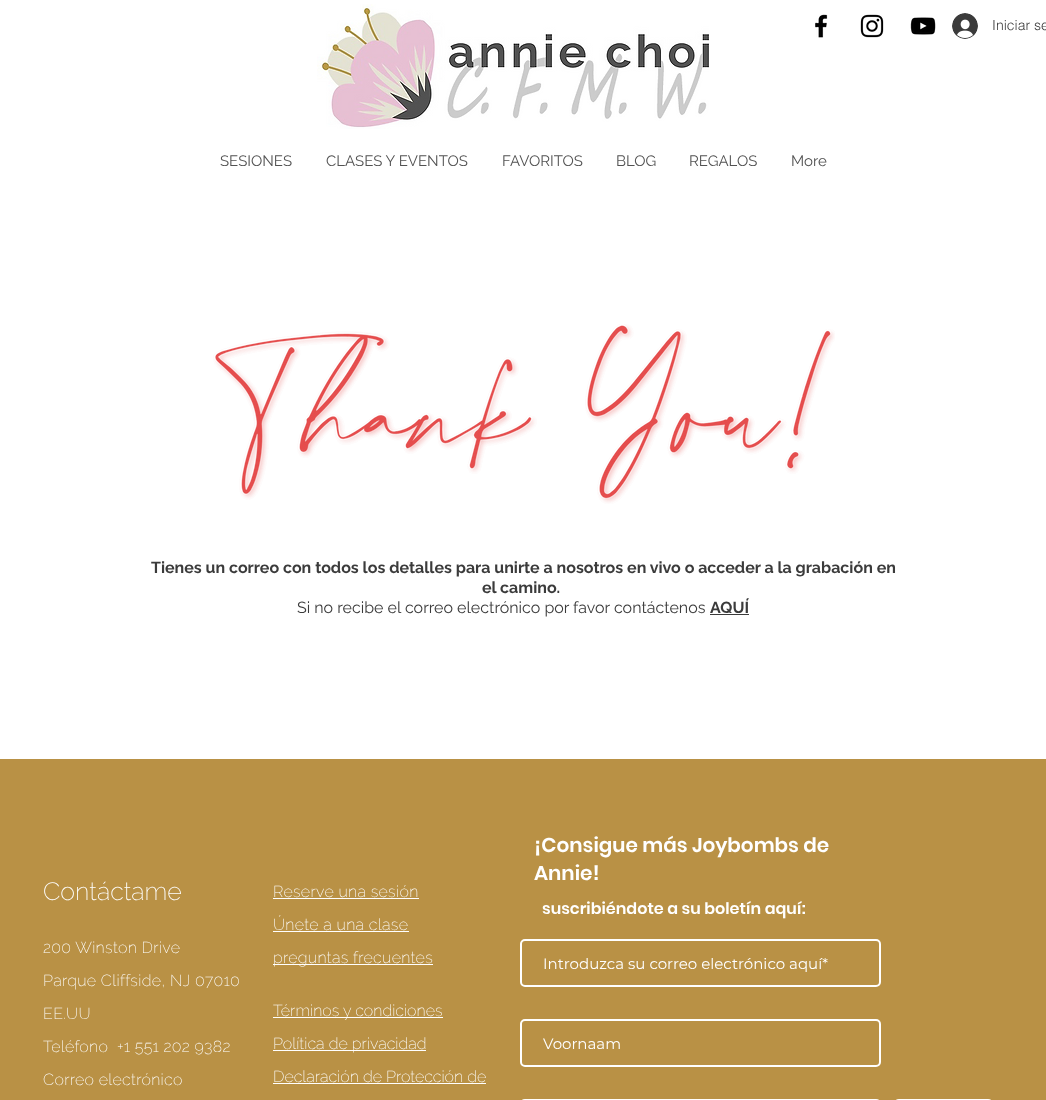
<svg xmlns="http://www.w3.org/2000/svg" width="1046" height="1100">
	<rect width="100%" height="100%" fill="#FFFFFF" />
	<image x="317" y="4" width="392" height="125" href="assets/img1.png" />
	<image x="815" y="14" width="13" height="24" href="assets/img2.png" />
	<image x="860" y="14" width="24" height="24" href="assets/img3.png" />
	<image x="910" y="17" width="26" height="18" href="assets/img4.png" />
	<image x="952" y="13" width="26" height="26" href="assets/img5.png" />
	<text x="992" y="30" font-family="helvetica" font-size="14" font-weight="300" fill="#3B3B3B">Iniciar se</text>
	<g font-family="Raleway" font-size="15" fill="#525252">
		<text x="220" y="166">SESIONES</text>
		<text x="326" y="166">CLASES Y EVENTOS</text>
		<text x="502" y="166">FAVORITOS</text>
		<text x="616" y="166">BLOG</text>
		<text x="689" y="166">REGALOS</text>
		<text x="791" y="166">More</text>
	</g>
	<image x="213" y="324" width="622" height="180" href="assets/img6.png" />
	<g font-family="Raleway" font-size="16" font-weight="700" fill="#3B3B3B">
		<text x="151" y="573">Tienes un correo con todos los detalles para unirte a nosotros en vivo o acceder a la grabación en</text>
		<text x="482" y="593">el camino.</text>
	</g>
	<text x="297" y="613" font-family="Raleway" font-size="16" fill="#3B3B3B">Si no recibe el correo electrónico por favor contáctenos</text>
	<rect x="710" y="614" width="39" height="1" fill="#3B3B3B" />
	<text x="710" y="613" font-family="Raleway" font-size="16" font-weight="700" fill="#3B3B3B">AQUÍ</text>
	<rect x="0" y="759" width="1046" height="341" fill="#B99145" />
	<text x="43" y="900" font-family="Raleway" font-size="25" font-weight="200" fill="#FFFFFF">Contáctame</text>
	<g font-family="Raleway" font-size="16" font-weight="200" letter-spacing="0.3" fill="#FFFFFF">
		<text x="43" y="953">200 Winston Drive</text>
		<text x="43" y="986">Parque Cliffside, NJ 07010</text>
		<text x="43" y="1019">EE.UU</text>
		<text x="43" y="1052">Teléfono</text>
		<text x="117" y="1052">+1 551 202 9382</text>
		<text x="43" y="1085">Correo electrónico</text>
		<text x="273" y="897">Reserve una sesión</text>
	</g>
	<rect x="273" y="898" width="146" height="1" fill="#FFFFFF" />
	<text x="273" y="930" font-family="Raleway" font-size="16" font-weight="200" letter-spacing="0.3" fill="#FFFFFF">Únete a una clase</text>
	<rect x="273" y="931" width="136" height="1" fill="#FFFFFF" />
	<rect x="273" y="964" width="160" height="1" fill="#FFFFFF" />
	<text x="273" y="963" font-family="Raleway" font-size="16" font-weight="200" letter-spacing="0.3" fill="#FFFFFF">preguntas frecuentes</text>
	<rect x="273" y="1017" width="170" height="1" fill="#FFFFFF" />
	<text x="273" y="1016" font-family="Raleway" font-size="16" font-weight="200" fill="#FFFFFF">Términos y condiciones</text>
	<rect x="273" y="1050" width="153" height="1" fill="#FFFFFF" />
	<g font-family="Raleway" font-size="16" font-weight="200" fill="#FFFFFF">
		<text x="273" y="1049">Política de privacidad</text>
		<text x="273" y="1082">Declaración de Protección de</text>
	</g>
	<rect x="273" y="1083" width="213" height="1" fill="#FFFFFF" />
	<g font-family="Poppins" font-size="20" font-weight="600" fill="#FFFFFF">
		<text x="534" y="852">¡Consigue más Joybombs de</text>
		<text x="534" y="880">Annie!</text>
	</g>
	<text x="542" y="914" font-family="Poppins" font-size="16" font-weight="600" fill="#FFFFFF">suscribiéndote a su boletín aquí:</text>
	<rect x="521" y="940" width="359" height="46" rx="4" fill="none" stroke="#FFFFFF" stroke-width="2" />
	<text x="543" y="969" font-family="Montserrat" font-size="15" fill="#FFFFFF">Introduzca su correo electrónico aquí*</text>
	<rect x="521" y="1020" width="359" height="46" rx="4" fill="none" stroke="#FFFFFF" stroke-width="2" />
	<text x="543" y="1049" font-family="Montserrat" font-size="15" fill="#FFFFFF">Voornaam</text>
	<rect x="521" y="1100" width="359" height="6" rx="4" fill="none" stroke="#FFFFFF" stroke-width="2" />
	<rect x="895" y="1100" width="97" height="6" rx="4" fill="none" stroke="#FFFFFF" stroke-width="2" />
</svg>
